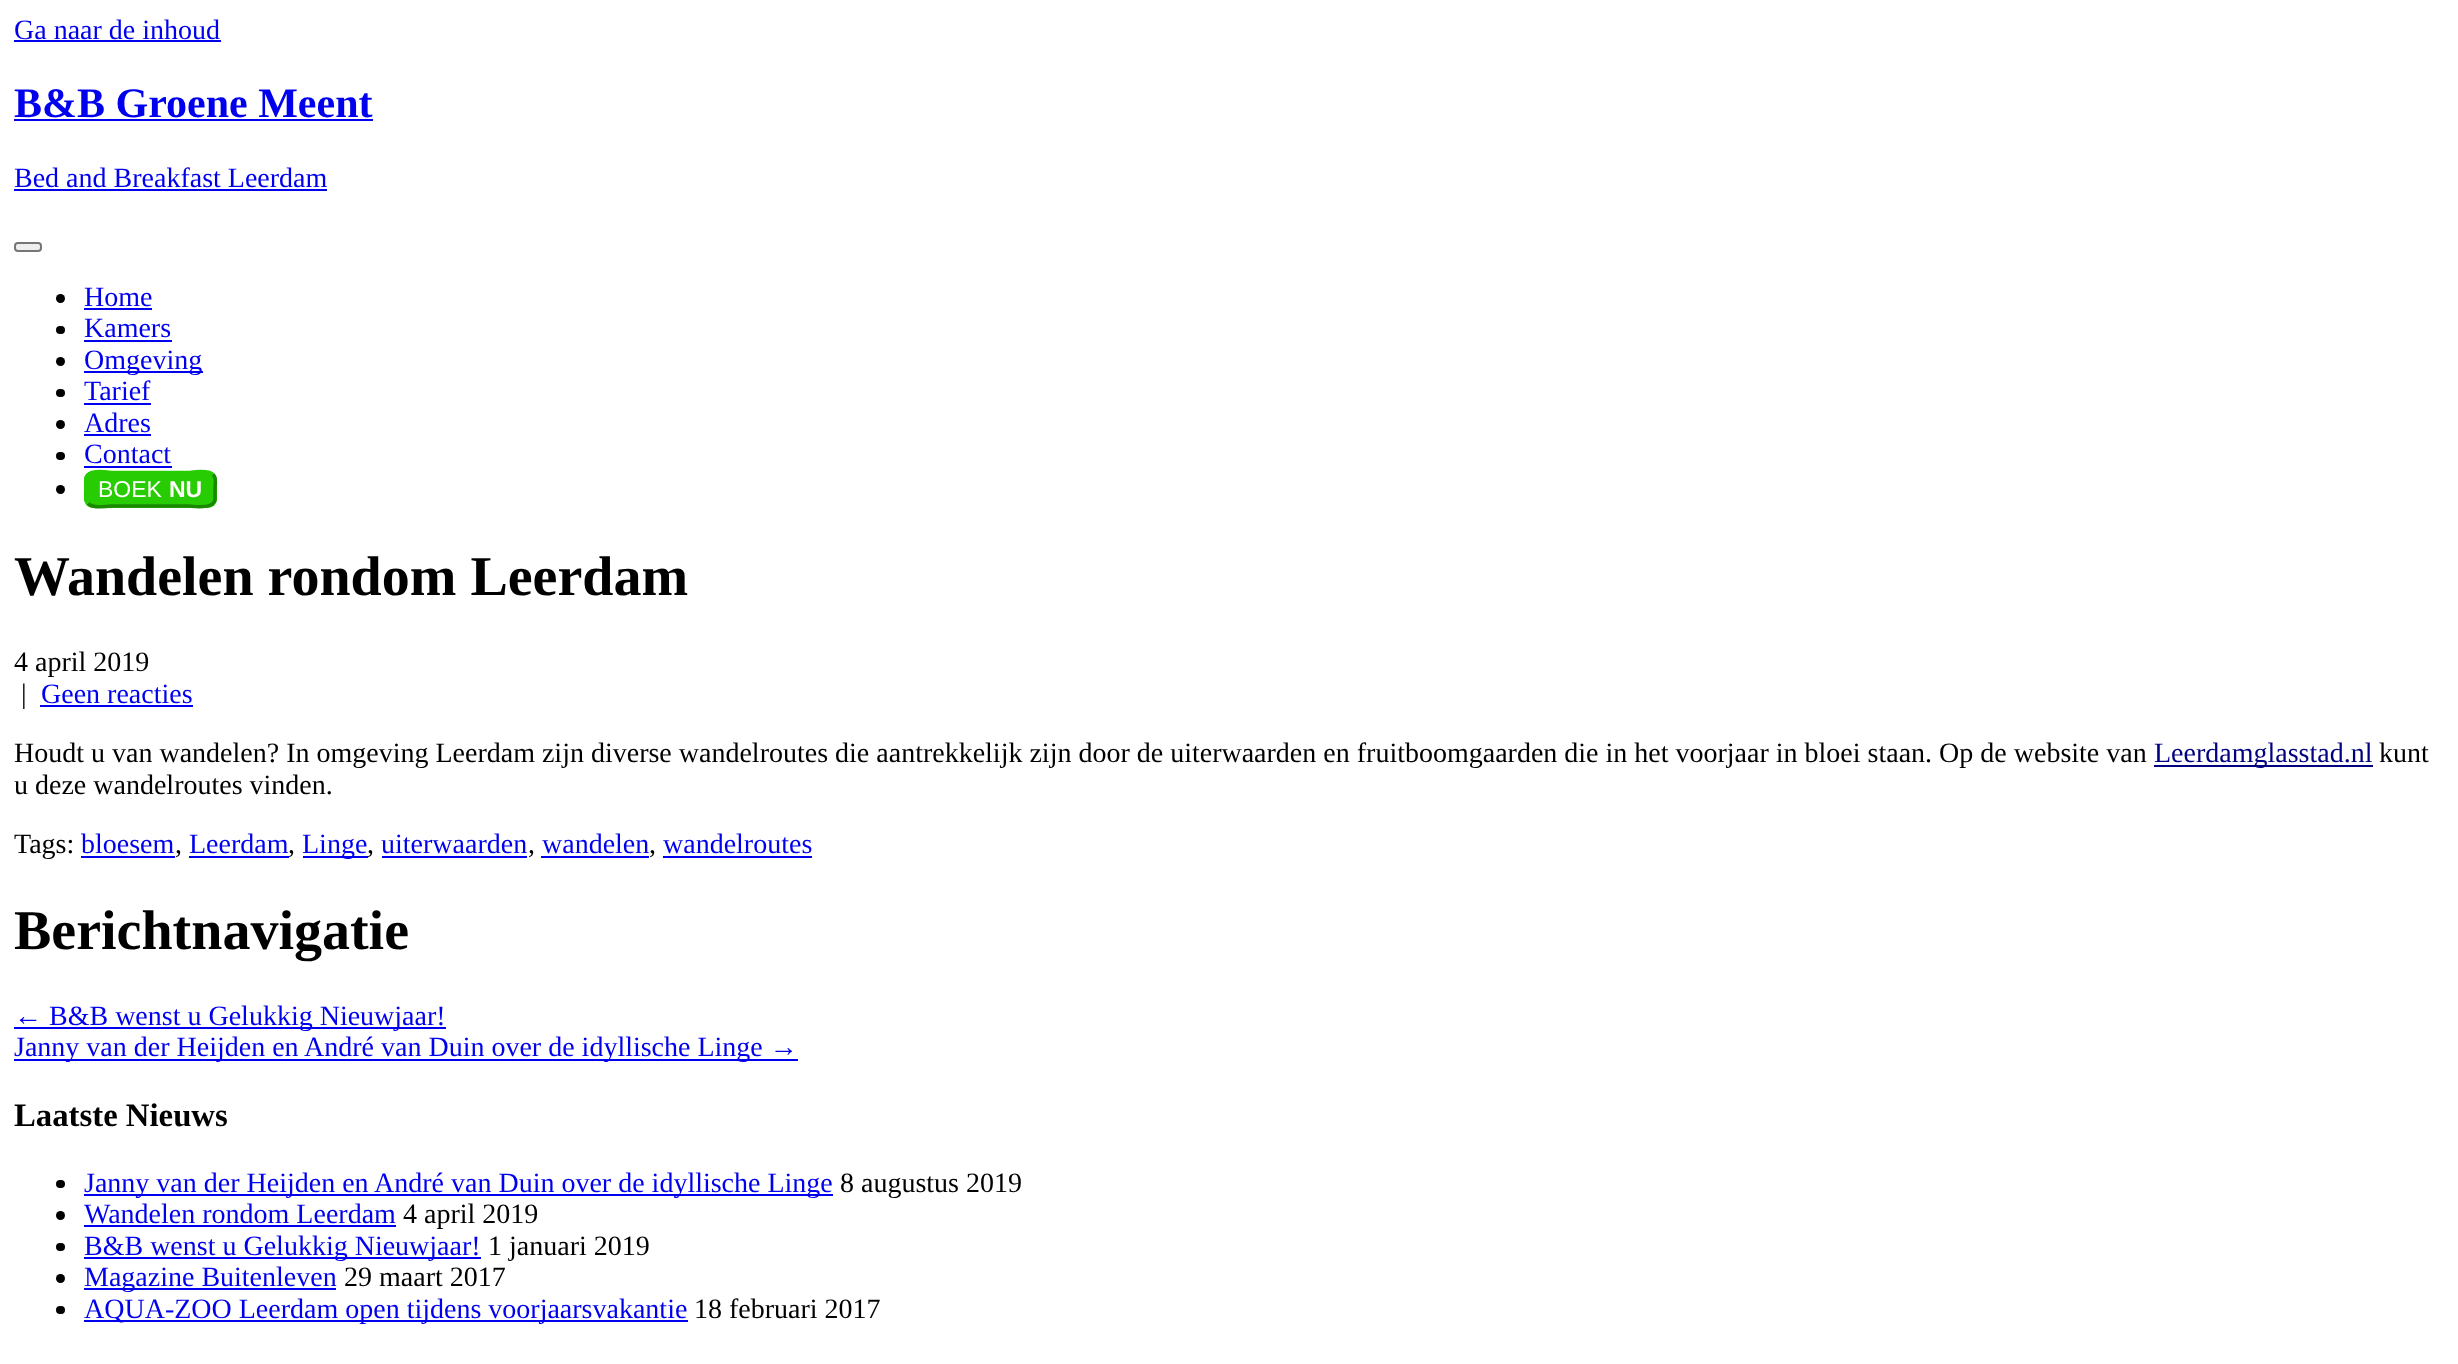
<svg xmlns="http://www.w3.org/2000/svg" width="2458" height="1364">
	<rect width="100%" height="100%" fill="#FFFFFF" />
	<text x="14" y="39" font-family="Liberation Serif" font-size="28" fill="#0000EE">Ga naar de inhoud</text>
	<rect x="14" y="40" width="207" height="2" fill="#0000EE" />
	<text x="14" y="117" font-family="Liberation Serif" font-size="42" font-weight="700" fill="#0000EE">B&amp;B Groene Meent</text>
	<rect x="14" y="119" width="359" height="2" fill="#0000EE" />
	<text x="14" y="187" font-family="Liberation Serif" font-size="28" fill="#0000EE">Bed and Breakfast Leerdam</text>
	<rect x="14" y="189" width="313" height="2" fill="#0000EE" />
	<rect x="15" y="243" width="26" height="8" rx="3" fill="#EFEFEF" stroke="#767676" stroke-width="2" />
	<circle cx="60.5" cy="298.5" r="4.5" fill="#000000" />
	<text x="84" y="306" font-family="Liberation Serif" font-size="28" fill="#0000EE">Home</text>
	<rect x="84" y="308" width="68" height="2" fill="#0000EE" />
	<rect x="56" y="326" width="9" height="8" rx="4" fill="#000000" />
	<text x="84" y="337" font-family="Liberation Serif" font-size="28" fill="#0000EE">Kamers</text>
	<rect x="84" y="340" width="88" height="2" fill="#0000EE" />
	<circle cx="60.5" cy="361.5" r="4.5" fill="#000000" />
	<rect x="84" y="371" width="119" height="2" fill="#0000EE" />
	<text x="84" y="369" font-family="Liberation Serif" font-size="28" fill="#0000EE">Omgeving</text>
	<rect x="56" y="389" width="9" height="8" rx="4" fill="#000000" />
	<text x="84" y="400" font-family="Liberation Serif" font-size="28" fill="#0000EE">Tarief</text>
	<rect x="84" y="403" width="67" height="2" fill="#0000EE" />
	<circle cx="60.5" cy="424.5" r="4.5" fill="#000000" />
	<text x="84" y="432" font-family="Liberation Serif" font-size="28" fill="#0000EE">Adres</text>
	<rect x="84" y="434" width="67" height="2" fill="#0000EE" />
	<rect x="56" y="452" width="9" height="8" rx="4" fill="#000000" />
	<text x="84" y="463" font-family="Liberation Serif" font-size="28" fill="#0000EE">Contact</text>
	<rect x="84" y="466" width="88" height="2" fill="#0000EE" />
	<circle cx="60.5" cy="489.5" r="4.5" fill="#000000" />
	<rect x="84" y="471" width="133" height="37" rx="9" fill="#27CC02" />
	<path d="M213 474.5C217 478 215 484.5 215 489V500C213 510 192 506 189 506H112C111.5 506 93 509 88 503.5" fill="none" stroke="#1A8801" stroke-width="3.5" />
	<path d="M88 503.5C84 500 86 493.5 86 489V478C88 468 109 472.5 112 472.5H189C189.5 472.5 208 469.5 213 474.5" fill="none" stroke="#27CC02" stroke-width="3.5" />
	<text x="98" y="497" font-family="Liberation Sans" font-size="23" fill="#FFFFFF">BOEK</text>
	<text x="169" y="497" font-family="Liberation Sans" font-size="23" font-weight="700" fill="#FFFFFF">NU</text>
	<text x="14" y="595" font-family="Liberation Serif" font-size="56" font-weight="700" fill="#000000">Wandelen rondom Leerdam</text>
	<g font-family="Liberation Serif" font-size="28" fill="#000000">
		<text x="14" y="671">4 april 2019</text>
		<text x="21" y="703">|</text>
	</g>
	<text x="41" y="703" font-family="Liberation Serif" font-size="28" fill="#0000EE">Geen reacties</text>
	<rect x="40" y="705" width="153" height="2" fill="#0000EE" />
	<text x="14" y="762" font-family="Liberation Serif" font-size="28" fill="#000000">Houdt u van wandelen? In omgeving Leerdam zijn diverse wandelroutes die aantrekkelijk zijn door de uiterwaarden en fruitboomgaarden die in het voorjaar in bloei staan. Op de website van</text>
	<rect x="2154" y="765" width="219" height="2" fill="#000080" />
	<text x="2154" y="762" font-family="Liberation Serif" font-size="28" fill="#000080">Leerdamglasstad.nl</text>
	<g font-family="Liberation Serif" font-size="28" fill="#000000">
		<text x="2379" y="762">kunt</text>
		<text x="14" y="794">u deze wandelroutes vinden.</text>
		<text x="14" y="853">Tags:</text>
	</g>
	<text x="81" y="853" font-family="Liberation Serif" font-size="28" fill="#0000EE">bloesem</text>
	<rect x="81" y="856" width="94" height="2" fill="#0000EE" />
	<text x="175" y="853" font-family="Liberation Serif" font-size="28" fill="#000000">,</text>
	<text x="189" y="853" font-family="Liberation Serif" font-size="28" fill="#0000EE">Leerdam</text>
	<rect x="189" y="856" width="100" height="2" fill="#0000EE" />
	<text x="288" y="853" font-family="Liberation Serif" font-size="28" fill="#000000">,</text>
	<rect x="303" y="856" width="65" height="2" fill="#0000EE" />
	<text x="302" y="853" font-family="Liberation Serif" font-size="28" fill="#0000EE">Linge</text>
	<text x="367" y="853" font-family="Liberation Serif" font-size="28" fill="#000000">,</text>
	<text x="381" y="853" font-family="Liberation Serif" font-size="28" fill="#0000EE">uiterwaarden</text>
	<rect x="382" y="856" width="145" height="2" fill="#0000EE" />
	<text x="528" y="853" font-family="Liberation Serif" font-size="28" fill="#000000">,</text>
	<text x="542" y="853" font-family="Liberation Serif" font-size="28" fill="#0000EE">wandelen</text>
	<rect x="541" y="856" width="108" height="2" fill="#0000EE" />
	<text x="649" y="853" font-family="Liberation Serif" font-size="28" fill="#000000">,</text>
	<text x="663" y="853" font-family="Liberation Serif" font-size="28" fill="#0000EE">wandelroutes</text>
	<rect x="663" y="856" width="149" height="2" fill="#0000EE" />
	<text x="14" y="949" font-family="Liberation Serif" font-size="56" font-weight="700" fill="#000000">Berichtnavigatie</text>
	<rect x="14" y="1027" width="432" height="2" fill="#0000EE" />
	<text x="14" y="1025" font-family="Liberation Serif" font-size="28" fill="#0000EE">← B&amp;B wenst u Gelukkig Nieuwjaar!</text>
	<rect x="14" y="1059" width="784" height="2" fill="#0000EE" />
	<text x="14" y="1056" font-family="Liberation Serif" font-size="28" fill="#0000EE">Janny van der Heijden en André van Duin over de idyllische Linge →</text>
	<text x="14" y="1126" font-family="Liberation Serif" font-size="32.75" font-weight="700" fill="#000000">Laatste Nieuws</text>
	<rect x="56" y="1180" width="9" height="8" rx="4" fill="#000000" />
	<rect x="84" y="1194" width="749" height="2" fill="#0000EE" />
	<text x="84" y="1192" font-family="Liberation Serif" font-size="28" fill="#0000EE">Janny van der Heijden en André van Duin over de idyllische Linge</text>
	<text x="840" y="1192" font-family="Liberation Serif" font-size="28" fill="#000000">8 augustus 2019</text>
	<circle cx="60.5" cy="1215.5" r="4.5" fill="#000000" />
	<text x="84" y="1223" font-family="Liberation Serif" font-size="28" fill="#0000EE">Wandelen rondom Leerdam</text>
	<rect x="84" y="1225" width="312" height="2" fill="#0000EE" />
	<text x="403" y="1223" font-family="Liberation Serif" font-size="28" fill="#000000">4 april 2019</text>
	<rect x="56" y="1243" width="9" height="8" rx="4" fill="#000000" />
	<rect x="84" y="1257" width="397" height="2" fill="#0000EE" />
	<text x="84" y="1255" font-family="Liberation Serif" font-size="28" fill="#0000EE">B&amp;B wenst u Gelukkig Nieuwjaar!</text>
	<text x="488" y="1255" font-family="Liberation Serif" font-size="28" fill="#000000">1 januari 2019</text>
	<circle cx="60.5" cy="1278.5" r="4.5" fill="#000000" />
	<rect x="84" y="1288" width="252" height="2" fill="#0000EE" />
	<text x="84" y="1286" font-family="Liberation Serif" font-size="28" fill="#0000EE">Magazine Buitenleven</text>
	<text x="344" y="1286" font-family="Liberation Serif" font-size="28" fill="#000000">29 maart 2017</text>
	<rect x="56" y="1306" width="9" height="8" rx="4" fill="#000000" />
	<rect x="84" y="1320" width="604" height="2" fill="#0000EE" />
	<text x="84" y="1318" font-family="Liberation Serif" font-size="28" fill="#0000EE">AQUA-ZOO Leerdam open tijdens voorjaarsvakantie</text>
	<text x="694" y="1318" font-family="Liberation Serif" font-size="28" fill="#000000">18 februari 2017</text>
</svg>
